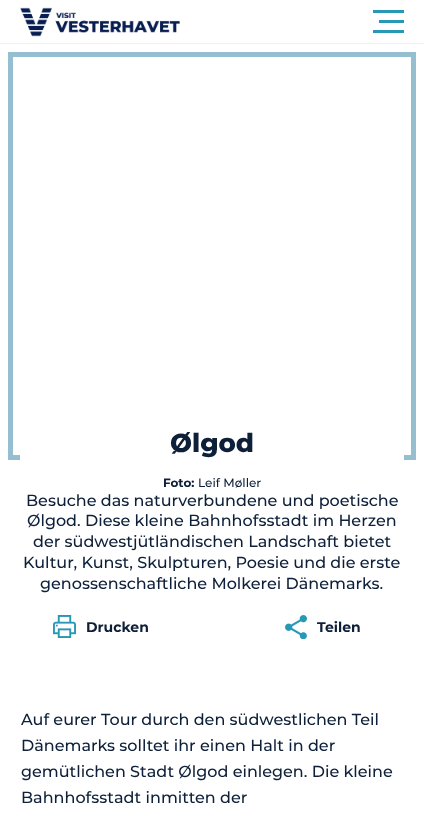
<svg xmlns="http://www.w3.org/2000/svg" width="424" height="813">
	<rect width="100%" height="100%" fill="#FFFFFF" />
	<rect x="0" y="43" width="424" height="1" fill="#F0F1F3" />
	<image x="20" y="7" width="160" height="30" href="assets/img1.png" />
	<rect x="373" y="10" width="31" height="3" fill="#2898B7" />
	<rect x="379" y="20" width="25" height="3" fill="#2898B7" />
	<rect x="373" y="30" width="31" height="3" fill="#2898B7" />
	<rect x="10.5" y="54.5" width="403" height="403" fill="none" stroke="#95BED1" stroke-width="5" />
	<rect x="20" y="455" width="384" height="5" fill="#FFFFFF" />
	<text x="170" y="452" font-family="Montserrat" font-size="26" font-weight="800" fill="#0D1F39">Ølgod</text>
	<text x="163" y="487" font-family="Montserrat" font-size="12" font-weight="700" fill="#0D1F39">Foto:</text>
	<text x="198" y="487" font-family="Montserrat" font-size="12" font-weight="500" fill="#0D1F39">Leif Møller</text>
	<g font-family="Montserrat" font-size="16" font-weight="500" fill="#0D1F39">
		<text x="26" y="506">Besuche das naturverbundene und poetische</text>
		<text x="27" y="526">Ølgod. Diese kleine Bahnhofsstadt im Herzen</text>
		<text x="33" y="547">der südwestjütländischen Landschaft bietet</text>
		<text x="23" y="568">Kultur, Kunst, Skulpturen, Poesie und die erste</text>
		<text x="40" y="589">genossenschaftliche Molkerei Dänemarks.</text>
	</g>
	<image x="53" y="615" width="23" height="23" href="assets/img2.png" />
	<text x="86" y="632" font-family="Montserrat" font-size="14" font-weight="700" fill="#0D1F39">Drucken</text>
	<image x="285" y="615" width="22" height="24" href="assets/img3.png" />
	<text x="317" y="632" font-family="Montserrat" font-size="14" font-weight="700" fill="#0D1F39">Teilen</text>
	<g font-family="Montserrat" font-size="16" font-weight="500" fill="#0D1F39">
		<text x="21" y="725">Auf eurer Tour durch den südwestlichen Teil</text>
		<text x="21" y="751">Dänemarks solltet ihr einen Halt in der</text>
		<text x="21" y="777">gemütlichen Stadt Ølgod einlegen. Die kleine</text>
		<text x="21" y="803">Bahnhofsstadt inmitten der</text>
	</g>
</svg>
